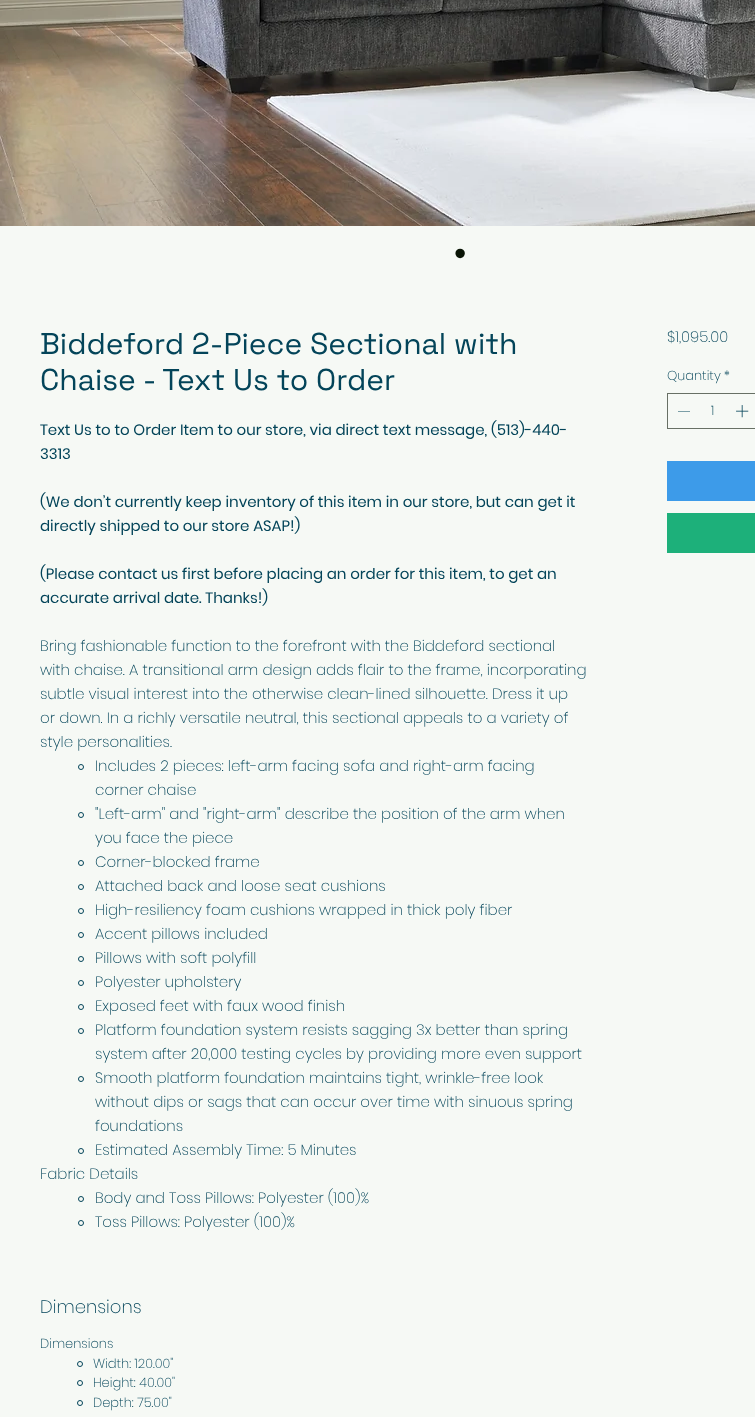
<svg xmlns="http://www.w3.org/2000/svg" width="755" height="1417">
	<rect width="100%" height="100%" fill="#F6F9F5" />
	<image x="0" y="0" width="755" height="226" href="assets/img1.png" />
	<text x="454" y="265" font-family="Liberation Sans" font-size="35" fill="#091405">•</text>
	<g font-family="Space Grotesk" font-size="30" fill="#034459">
		<text x="40" y="354">Biddeford 2-Piece Sectional with</text>
		<text x="40" y="390">Chaise - Text Us to Order</text>
	</g>
	<g font-family="Poppins" font-size="15" fill="#034459">
		<text x="40" y="435">Text Us to to Order Item to our store, via direct text message, (513)-440-</text>
		<text x="40" y="459">3313</text>
		<text x="40" y="507">(We don’t currently keep inventory of this item in our store, but can get it</text>
		<text x="40" y="531">directly shipped to our store ASAP!)</text>
		<text x="40" y="579">(Please contact us first before placing an order for this item, to get an</text>
		<text x="40" y="603">accurate arrival date. Thanks!)</text>
	</g>
	<g font-family="Poppins" font-size="15" font-weight="200" fill="#034459">
		<text x="40" y="651">Bring fashionable function to the forefront with the Biddeford sectional</text>
		<text x="40" y="675">with chaise. A transitional arm design adds flair to the frame, incorporating</text>
		<text x="40" y="699">subtle visual interest into the otherwise clean-lined silhouette. Dress it up</text>
		<text x="40" y="723">or down. In a richly versatile neutral, this sectional appeals to a variety of</text>
		<text x="40" y="747">style personalities.</text>
	</g>
	<circle cx="81" cy="767" r="2.5" fill="none" stroke="#034459" />
	<g font-family="Poppins" font-size="15" font-weight="200" fill="#034459">
		<text x="95" y="771">Includes 2 pieces: left-arm facing sofa and right-arm facing</text>
		<text x="95" y="795">corner chaise</text>
	</g>
	<circle cx="81" cy="815" r="2.5" fill="none" stroke="#034459" />
	<g font-family="Poppins" font-size="15" font-weight="200" fill="#034459">
		<text x="95" y="819">"Left-arm" and "right-arm" describe the position of the arm when</text>
		<text x="95" y="843">you face the piece</text>
	</g>
	<circle cx="81" cy="863" r="2.5" fill="none" stroke="#034459" />
	<text x="95" y="867" font-family="Poppins" font-size="15" font-weight="200" fill="#034459">Corner-blocked frame</text>
	<circle cx="81" cy="887" r="2.5" fill="none" stroke="#034459" />
	<text x="95" y="891" font-family="Poppins" font-size="15" font-weight="200" fill="#034459">Attached back and loose seat cushions</text>
	<circle cx="81" cy="911" r="2.5" fill="none" stroke="#034459" />
	<text x="95" y="915" font-family="Poppins" font-size="15" font-weight="200" fill="#034459">High-resiliency foam cushions wrapped in thick poly fiber</text>
	<circle cx="81" cy="935" r="2.5" fill="none" stroke="#034459" />
	<text x="95" y="939" font-family="Poppins" font-size="15" font-weight="200" fill="#034459">Accent pillows included</text>
	<circle cx="81" cy="959" r="2.5" fill="none" stroke="#034459" />
	<text x="95" y="963" font-family="Poppins" font-size="15" font-weight="200" fill="#034459">Pillows with soft polyfill</text>
	<circle cx="81" cy="983" r="2.5" fill="none" stroke="#034459" />
	<text x="95" y="987" font-family="Poppins" font-size="15" font-weight="200" fill="#034459">Polyester upholstery</text>
	<circle cx="81" cy="1007" r="2.5" fill="none" stroke="#034459" />
	<text x="95" y="1011" font-family="Poppins" font-size="15" font-weight="200" fill="#034459">Exposed feet with faux wood finish</text>
	<circle cx="81" cy="1031" r="2.5" fill="none" stroke="#034459" />
	<g font-family="Poppins" font-size="15" font-weight="200" fill="#034459">
		<text x="95" y="1035">Platform foundation system resists sagging 3x better than spring</text>
		<text x="95" y="1059">system after 20,000 testing cycles by providing more even support</text>
	</g>
	<circle cx="81" cy="1079" r="2.5" fill="none" stroke="#034459" />
	<g font-family="Poppins" font-size="15" font-weight="200" fill="#034459">
		<text x="95" y="1083">Smooth platform foundation maintains tight, wrinkle-free look</text>
		<text x="95" y="1107">without dips or sags that can occur over time with sinuous spring</text>
		<text x="95" y="1131">foundations</text>
	</g>
	<circle cx="81" cy="1151" r="2.5" fill="none" stroke="#034459" />
	<g font-family="Poppins" font-size="15" font-weight="200" fill="#034459">
		<text x="95" y="1155">Estimated Assembly Time: 5 Minutes</text>
		<text x="40" y="1179">Fabric Details</text>
	</g>
	<circle cx="81" cy="1199" r="2.5" fill="none" stroke="#034459" />
	<text x="95" y="1203" font-family="Poppins" font-size="15" font-weight="200" fill="#034459">Body and Toss Pillows: Polyester (100)%</text>
	<circle cx="81" cy="1223" r="2.5" fill="none" stroke="#034459" />
	<text x="95" y="1227" font-family="Poppins" font-size="15" font-weight="200" fill="#034459">Toss Pillows: Polyester (100)%</text>
	<text x="40" y="1313" font-family="Poppins" font-size="18" font-weight="200" fill="#034459">Dimensions</text>
	<text x="40" y="1348" font-family="Poppins" font-size="13" font-weight="200" fill="#034459">Dimensions</text>
	<circle cx="80" cy="1364" r="2.5" fill="none" stroke="#034459" />
	<text x="93" y="1368" font-family="Poppins" font-size="13" font-weight="200" fill="#034459">Width: 120.00"</text>
	<circle cx="80" cy="1383" r="2.5" fill="none" stroke="#034459" />
	<text x="93" y="1387" font-family="Poppins" font-size="13" font-weight="200" fill="#034459">Height: 40.00"</text>
	<circle cx="80" cy="1403" r="2.5" fill="none" stroke="#034459" />
	<text x="93" y="1407" font-family="Poppins" font-size="13" font-weight="200" fill="#034459">Depth: 75.00"</text>
	<text x="667" y="342" font-family="Poppins" font-size="15" font-weight="200" fill="#034459">$1,095.00</text>
	<g font-family="Poppins" font-size="13" font-weight="200" fill="#034459">
		<text x="667" y="380">Quantity</text>
		<text x="724" y="380">*</text>
	</g>
	<rect x="667.5" y="393.5" width="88" height="35" fill="none" stroke="#687065" />
	<path d="M690 411V411.5H678V411Z" fill="#034459" fill-rule="evenodd" />
	<text x="711" y="415" font-family="Poppins" font-size="13" font-weight="200" fill="#034459">1</text>
	<image x="736" y="405" width="13" height="13" href="assets/img2.png" />
	<rect x="667" y="461" width="88" height="40" fill="#3D9BE9" />
	<rect x="667" y="513" width="88" height="40" fill="#1DB07A" />
</svg>
